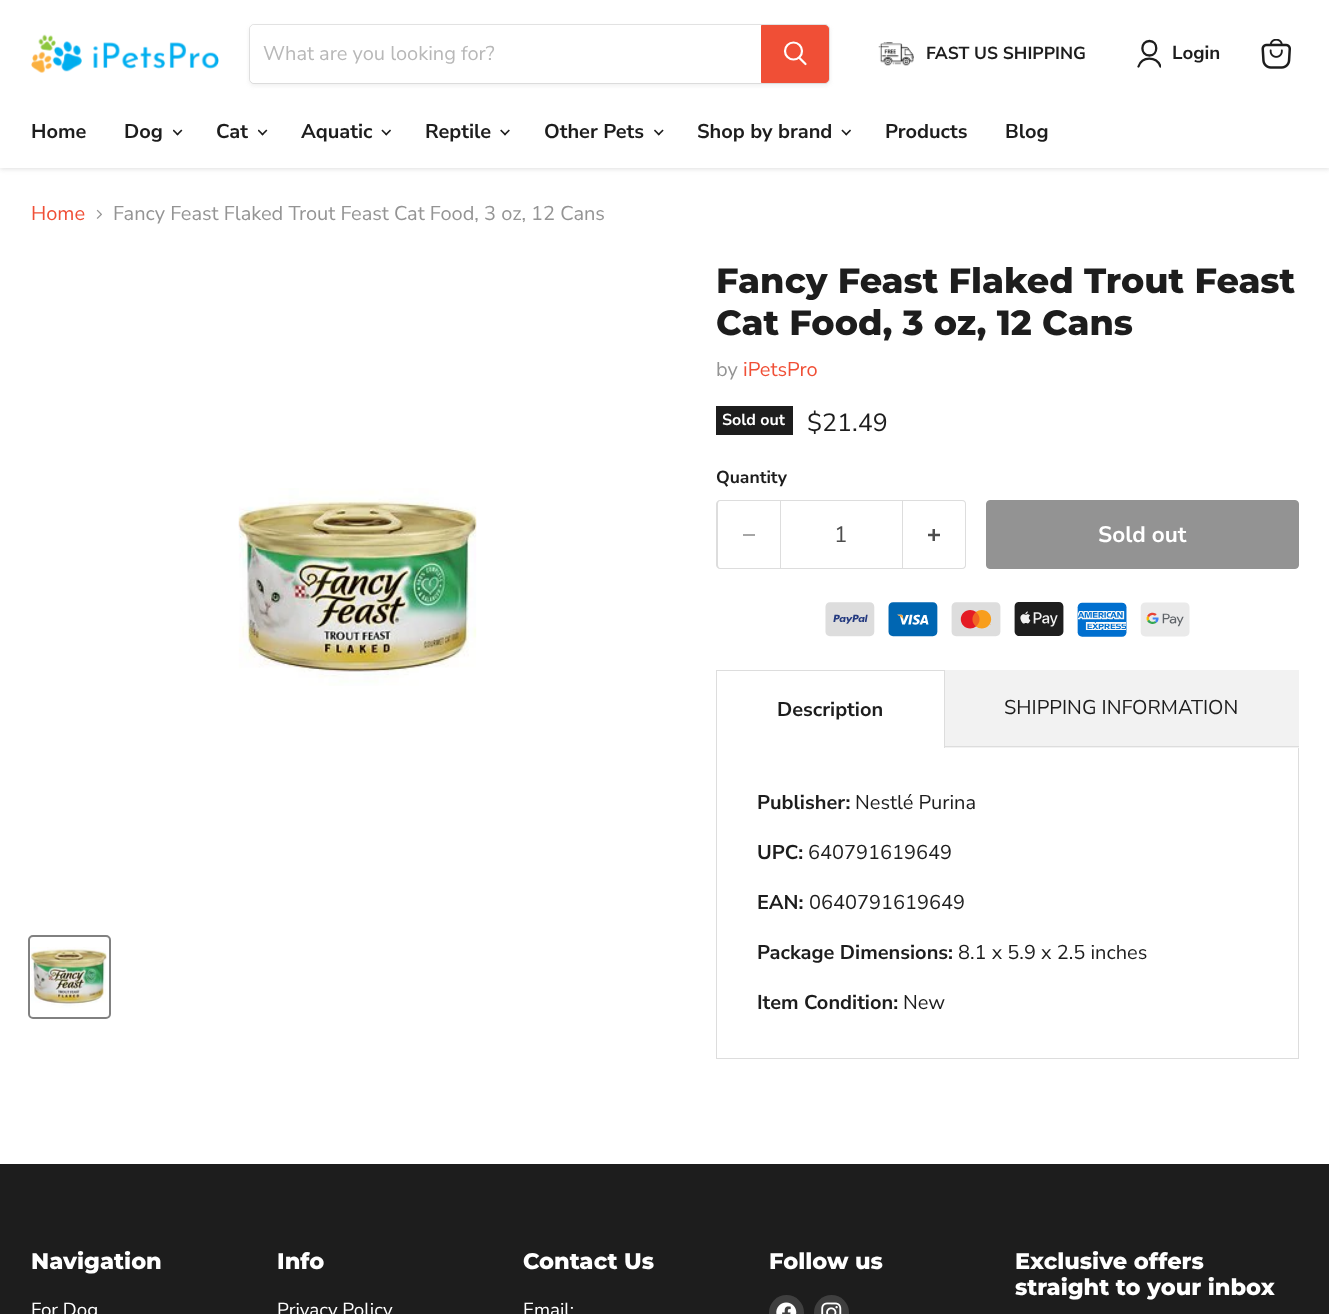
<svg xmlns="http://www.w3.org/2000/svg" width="1329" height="1314">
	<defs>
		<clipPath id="clip1"><rect x="1136" y="39" width="25" height="30" /></clipPath>
	</defs>
	<rect width="100%" height="100%" fill="#FFFFFF" />
	<rect x="0" y="1" width="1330" height="168" fill="#808080" fill-opacity="0.25" filter="blur(2.5px)" />
	<rect x="0" y="0" width="1329" height="168" fill="#FFFFFF" />
	<image x="31" y="34" width="188" height="39" href="assets/img1.png" />
	<rect x="249" y="26" width="581" height="60" rx="5" fill="#808080" fill-opacity="0.11" filter="blur(2px)" />
	<rect x="249.5" y="24.5" width="580" height="59" rx="4.5" fill="none" stroke="#808080" stroke-opacity="0.2" />
	<path d="M254 25H761V83H254C252 83 250 81 250 79V29C250 27 252 25 254 25Z" fill="#FFFFFF" />
	<text x="263" y="60" font-family="Nunito Sans" font-size="20" fill="#B8B8B8">What are you looking for?</text>
	<path d="M761.5 25.5H825C827 25.5 828.5 27 828.5 29V79C828.5 81 827 82.5 825 82.5H761.5Z" fill="#F04F36" stroke="#F04F36" />
	<path d="M805.5 64L799.5 58" fill="none" stroke="#FFFFFF" stroke-width="2.2" stroke-linecap="round" />
	<circle cx="793.5" cy="51" r="8.5" fill="none" stroke="#FFFFFF" stroke-width="2.2" />
	<image x="878" y="42" width="36" height="24" href="assets/img2.png" />
	<text x="926" y="59" font-family="Nunito Sans" font-size="17.5" font-weight="700" fill="#1D1D1D">FAST US SHIPPING</text>
	<path d="M1149.5 55.5C1158.5 55.5 1158.5 41 1149.5 41C1140 41 1140 55.5 1149.5 55.5Z" fill="none" stroke="#1D1D1D" stroke-width="2.3" stroke-linecap="round" stroke-linejoin="round" />
	<g clip-path="url(#clip1)">
		<path d="M1160.5 66.5C1156.5 56 1142 56 1138.5 66.5" fill="none" stroke="#1D1D1D" stroke-width="2.3" stroke-linecap="round" stroke-linejoin="round" />
	</g>
	<text x="1172" y="59" font-family="Nunito Sans" font-size="18.75" font-weight="700" fill="#1D1D1D">Login</text>
	<image x="1261" y="39" width="30" height="30" href="assets/img3.png" />
	<g font-family="Nunito Sans" font-size="20" font-weight="700" fill="#1D1D1D">
		<text x="31" y="138">Home</text>
		<text x="124" y="138">Dog</text>
	</g>
	<image x="173" y="129" width="10" height="7" href="assets/img4.png" />
	<text x="216" y="138" font-family="Nunito Sans" font-size="20" font-weight="700" fill="#1D1D1D">Cat</text>
	<image x="258" y="129" width="10" height="7" href="assets/img4.png" />
	<text x="301" y="138" font-family="Nunito Sans" font-size="20" font-weight="700" fill="#1D1D1D">Aquatic</text>
	<image x="381" y="129" width="10" height="7" href="assets/img5.png" />
	<text x="425" y="138" font-family="Nunito Sans" font-size="20" font-weight="700" fill="#1D1D1D">Reptile</text>
	<image x="500" y="129" width="10" height="7" href="assets/img6.png" />
	<text x="544" y="138" font-family="Nunito Sans" font-size="20" font-weight="700" fill="#1D1D1D">Other Pets</text>
	<image x="654" y="129" width="10" height="7" href="assets/img7.png" />
	<text x="697" y="138" font-family="Nunito Sans" font-size="20" font-weight="700" fill="#1D1D1D">Shop by brand</text>
	<image x="841" y="129" width="10" height="7" href="assets/img5.png" />
	<g font-family="Nunito Sans" font-size="20" font-weight="700" fill="#1D1D1D">
		<text x="885" y="138">Products</text>
		<text x="1005" y="138">Blog</text>
	</g>
	<text x="31" y="220" font-family="Nunito Sans" font-size="20" fill="#F04F36">Home</text>
	<image x="96" y="209" width="6" height="10" href="assets/img8.png" />
	<text x="113" y="220" font-family="Nunito Sans" font-size="20" fill="#949494">Fancy Feast Flaked Trout Feast Cat Food, 3 oz, 12 Cans</text>
	<image x="238" y="488" width="239" height="198" href="assets/img9.png" />
	<rect x="29" y="936" width="81" height="82" rx="4" fill="none" stroke="#818181" stroke-width="2" />
	<image x="31" y="947" width="76" height="61" href="assets/img10.png" />
	<g font-family="Montserrat" font-size="35" font-weight="800" fill="#1D1D1D">
		<text x="716" y="293">Fancy Feast Flaked Trout Feast</text>
		<text x="716" y="335">Cat Food, 3 oz, 12 Cans</text>
	</g>
	<text x="716" y="376" font-family="Nunito Sans" font-size="20" fill="#949494">by</text>
	<text x="743" y="376" font-family="Nunito Sans" font-size="20" fill="#F04F36">iPetsPro</text>
	<rect x="716" y="406" width="77" height="29" fill="#1D1D1D" />
	<text x="722" y="425" font-family="Nunito Sans" font-size="16" font-weight="700" fill="#FFFFFF">Sold out</text>
	<text x="807" y="431" font-family="Nunito Sans" font-size="25" fill="#1D1D1D">$21.49</text>
	<text x="716" y="483" font-family="Nunito Sans" font-size="17.5" font-weight="700" fill="#1D1D1D">Quantity</text>
	<path d="M720 500H780V569H720C718 569 716 567 716 565V504C716 502 718 500 720 500ZM720 501H780V568H720C719 568 718 566 718 565V504C718 502 719 501 720 501Z" fill="#DDDDDD" fill-rule="evenodd" />
	<rect x="743" y="534" width="12" height="2" fill="#A6A6A6" />
	<rect x="780.5" y="500.5" width="122" height="68" fill="none" stroke="#DDDDDD" />
	<text x="834" y="542" font-family="Nunito Sans" font-size="22.5" fill="#4D4D4D">1</text>
	<path d="M902 500H962C965 500 966 502 966 504V565C966 567 965 569 962 569H902ZM902 501H962C964 501 965 502 965 504V565C965 566 964 568 962 568H902Z" fill="#DDDDDD" fill-rule="evenodd" />
	<image x="928" y="529" width="12" height="12" href="assets/img11.png" />
	<rect x="986.5" y="500.5" width="312" height="68" rx="3.5" fill="#939393" stroke="#939393" />
	<text x="1098" y="542" font-family="Nunito Sans" font-size="22.5" font-weight="700" fill="#FFFFFF">Sold out</text>
	<image x="825" y="602" width="365" height="35" href="assets/img12.png" />
	<rect x="716" y="670" width="229" height="1" fill="#DDDDDD" />
	<rect x="944" y="670" width="1" height="78" fill="#DDDDDD" />
	<rect x="716" y="670" width="1" height="78" fill="#DDDDDD" />
	<text x="777" y="716" font-family="Nunito Sans" font-size="20" font-weight="700" fill="#1D1D1D">Description</text>
	<rect x="945" y="670" width="354" height="78" fill="#F2F2F2" />
	<rect x="945" y="746" width="354" height="1" fill="#DDDDDD" />
	<text x="1004" y="714" font-family="Nunito Sans" font-size="20" fill="#1D1D1D">SHIPPING INFORMATION</text>
	<rect x="1298" y="748" width="1" height="311" fill="#DDDDDD" />
	<rect x="716" y="1058" width="583" height="1" fill="#DDDDDD" />
	<rect x="716" y="748" width="1" height="311" fill="#DDDDDD" />
	<text x="757" y="809" font-family="Nunito Sans" font-size="20" font-weight="700" fill="#1D1D1D">Publisher:</text>
	<text x="855" y="809" font-family="Nunito Sans" font-size="20" fill="#1D1D1D">Nestlé Purina</text>
	<text x="757" y="859" font-family="Nunito Sans" font-size="20" font-weight="700" fill="#1D1D1D">UPC:</text>
	<text x="808" y="859" font-family="Nunito Sans" font-size="20" fill="#1D1D1D">640791619649</text>
	<text x="757" y="909" font-family="Nunito Sans" font-size="20" font-weight="700" fill="#1D1D1D">EAN:</text>
	<text x="809" y="909" font-family="Nunito Sans" font-size="20" fill="#1D1D1D">0640791619649</text>
	<text x="757" y="959" font-family="Nunito Sans" font-size="20" font-weight="700" fill="#1D1D1D">Package Dimensions:</text>
	<text x="958" y="959" font-family="Nunito Sans" font-size="20" fill="#1D1D1D">8.1 x 5.9 x 2.5 inches</text>
	<text x="757" y="1009" font-family="Nunito Sans" font-size="20" font-weight="700" fill="#1D1D1D">Item Condition:</text>
	<text x="903" y="1009" font-family="Nunito Sans" font-size="20" fill="#1D1D1D">New</text>
	<rect x="0" y="1164" width="1329" height="150" fill="#1D1D1D" />
	<text x="31" y="1269" font-family="Montserrat" font-size="22.5" font-weight="800" fill="#FFFFFF">Navigation</text>
	<text x="31" y="1316" font-family="Nunito Sans" font-size="18.75" fill="#FFFFFF">For Dog</text>
	<text x="277" y="1269" font-family="Montserrat" font-size="22.5" font-weight="800" fill="#FFFFFF">Info</text>
	<text x="277" y="1316" font-family="Nunito Sans" font-size="18.75" fill="#FFFFFF">Privacy Policy</text>
	<text x="523" y="1269" font-family="Montserrat" font-size="22.5" font-weight="800" fill="#FFFFFF">Contact Us</text>
	<text x="523" y="1316" font-family="Nunito Sans" font-size="18.75" fill="#FFFFFF">Email:</text>
	<text x="769" y="1269" font-family="Montserrat" font-size="22.5" font-weight="800" fill="#FFFFFF">Follow us</text>
	<circle cx="786.5" cy="1312.5" r="17.5" fill="#3F3F3F" />
	<image x="776" y="1302" width="21" height="12" href="assets/img13.png" />
	<circle cx="831.5" cy="1312.5" r="17.5" fill="#3F3F3F" />
	<image x="821" y="1302" width="21" height="12" href="assets/img14.png" />
	<g font-family="Montserrat" font-size="22.5" font-weight="800" fill="#FFFFFF">
		<text x="1015" y="1269">Exclusive offers</text>
		<text x="1015" y="1295">straight to your inbox</text>
	</g>
</svg>
